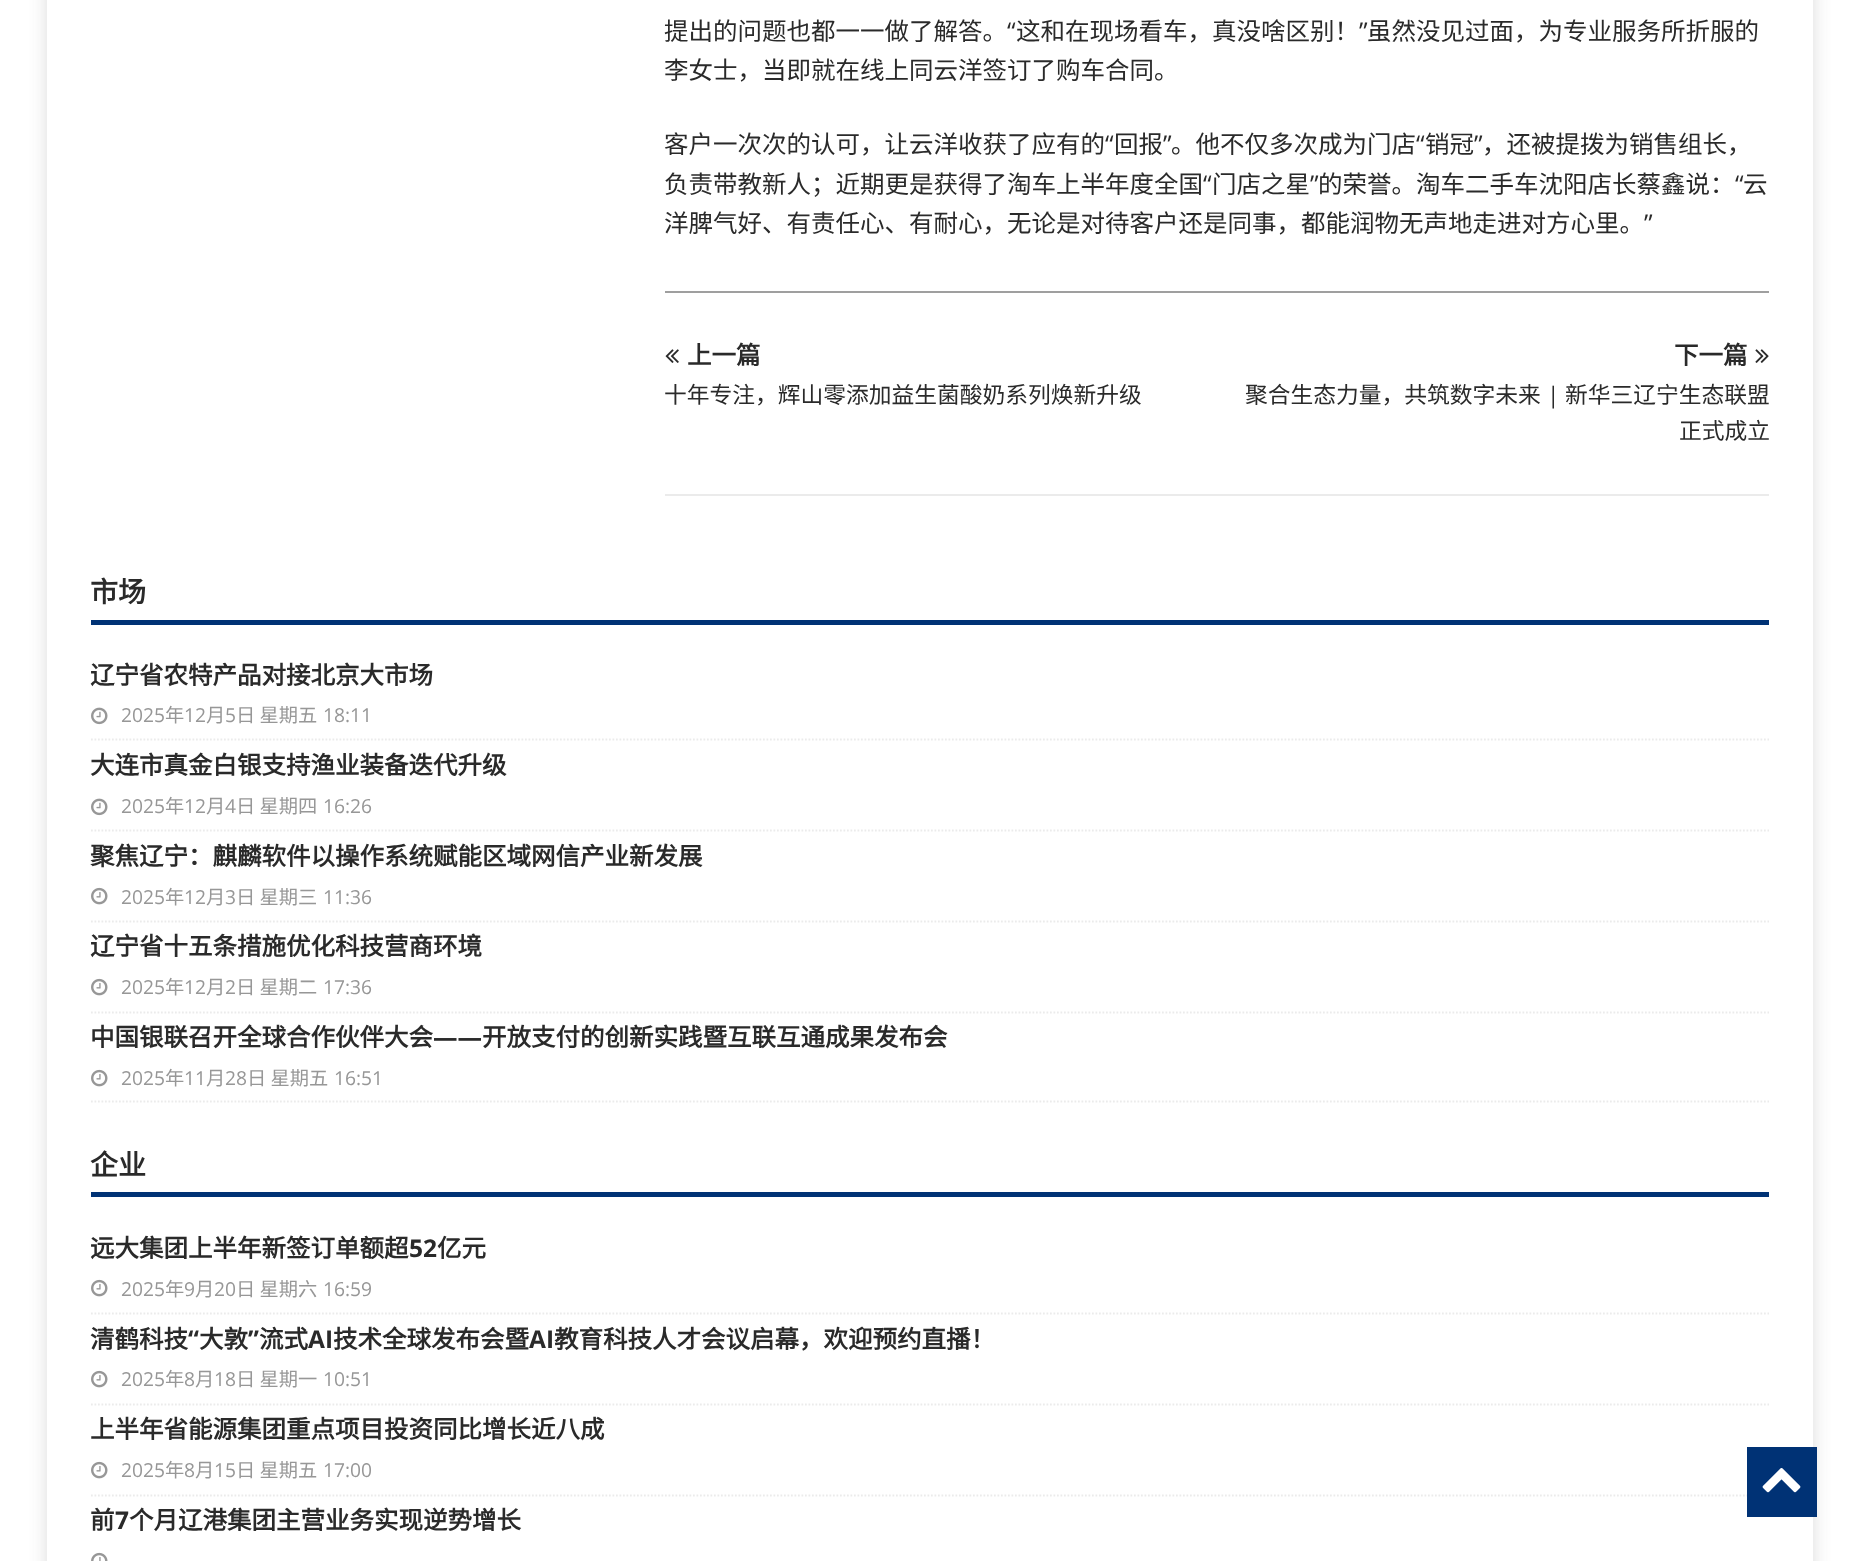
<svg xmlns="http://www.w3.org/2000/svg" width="1859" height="1561">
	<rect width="100%" height="100%" fill="#FFFFFF" />
	<rect x="47" y="-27" width="1766" height="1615" fill="#323232" fill-opacity="0.17" filter="blur(9px)" />
	<rect x="47" y="0" width="1766" height="1561" fill="#FFFFFF" />
	<text x="664" y="40" font-family="Noto Sans CJK SC" font-size="24.5" fill="#2A2A2A">提出的问题也都一一做了解答。</text>
	<text x="1007" y="40" font-family="Open Sans" font-size="24.5" fill="#2A2A2A">“</text>
	<text x="1016" y="40" font-family="Noto Sans CJK SC" font-size="24.5" fill="#2A2A2A">这和在现场看车，真没啥区别！</text>
	<text x="1359" y="40" font-family="Open Sans" font-size="24.5" fill="#2A2A2A">”</text>
	<g font-family="Noto Sans CJK SC" font-size="24.5" fill="#2A2A2A">
		<text x="1367" y="40">虽然没见过面，为专业服务所折服的</text>
		<text x="664" y="79">李女士，当即就在线上同云洋签订了购车合同。</text>
		<text x="664" y="153">客户一次次的认可，让云洋收获了应有的</text>
	</g>
	<text x="1105" y="153" font-family="Open Sans" font-size="24.5" fill="#2A2A2A">“</text>
	<text x="1114" y="153" font-family="Noto Sans CJK SC" font-size="24.5" fill="#2A2A2A">回报</text>
	<text x="1163" y="153" font-family="Open Sans" font-size="24.5" fill="#2A2A2A">”</text>
	<text x="1171" y="153" font-family="Noto Sans CJK SC" font-size="24.5" fill="#2A2A2A">。他不仅多次成为门店</text>
	<text x="1416" y="153" font-family="Open Sans" font-size="24.5" fill="#2A2A2A">“</text>
	<text x="1425" y="153" font-family="Noto Sans CJK SC" font-size="24.5" fill="#2A2A2A">销冠</text>
	<text x="1474" y="153" font-family="Open Sans" font-size="24.5" fill="#2A2A2A">”</text>
	<g font-family="Noto Sans CJK SC" font-size="24.5" fill="#2A2A2A">
		<text x="1482" y="153">，还被提拨为销售组长，</text>
		<text x="664" y="193">负责带教新人；近期更是获得了淘车上半年度全国</text>
	</g>
	<text x="1203" y="193" font-family="Open Sans" font-size="24.5" fill="#2A2A2A">“</text>
	<text x="1212" y="193" font-family="Noto Sans CJK SC" font-size="24.5" fill="#2A2A2A">门店之星</text>
	<text x="1310" y="193" font-family="Open Sans" font-size="24.5" fill="#2A2A2A">”</text>
	<text x="1318" y="193" font-family="Noto Sans CJK SC" font-size="24.5" fill="#2A2A2A">的荣誉。淘车二手车沈阳店长蔡鑫说：</text>
	<text x="1735" y="193" font-family="Open Sans" font-size="24.5" fill="#2A2A2A">“</text>
	<g font-family="Noto Sans CJK SC" font-size="24.5" fill="#2A2A2A">
		<text x="1743" y="193">云</text>
		<text x="664" y="232">洋脾气好、有责任心、有耐心，无论是对待客户还是同事，都能润物无声地走进对方心里。</text>
	</g>
	<text x="1644" y="232" font-family="Open Sans" font-size="24.5" fill="#2A2A2A">”</text>
	<rect x="665" y="291" width="1104" height="2" fill="#9F9F9F" />
	<rect x="665" y="494" width="1104" height="2" fill="#EBEBEB" />
	<image x="665" y="349" width="14" height="14" href="assets/img1.png" />
	<text x="687" y="364" font-family="Noto Sans CJK SC" font-size="24.5" font-weight="700" fill="#2A2A2A">上一篇</text>
	<text x="664" y="403" font-family="Noto Sans CJK SC" font-size="22.75" fill="#2A2A2A">十年专注，辉山零添加益生菌酸奶系列焕新升级</text>
	<text x="1674" y="364" font-family="Noto Sans CJK SC" font-size="24.5" font-weight="700" fill="#2A2A2A">下一篇</text>
	<image x="1755" y="349" width="14" height="14" href="assets/img2.png" />
	<text x="1245" y="403" font-family="Noto Sans CJK SC" font-size="22.75" fill="#2A2A2A">聚合生态力量，共筑数字未来</text>
	<text x="1547" y="403" font-family="Open Sans" font-size="22.75" fill="#2A2A2A">|</text>
	<g font-family="Noto Sans CJK SC" font-size="22.75" fill="#2A2A2A">
		<text x="1565" y="403">新华三辽宁生态联盟</text>
		<text x="1679" y="439">正式成立</text>
	</g>
	<rect x="91" y="620" width="1678" height="5" fill="#003275" />
	<text x="90" y="602" font-family="Noto Sans CJK SC" font-size="28" font-weight="700" fill="#2A2A2A">市场</text>
	<path d="M91 739.5H1769" fill="none" stroke="#EBEBEB" stroke-width="1.8" stroke-dasharray="1.75 1.75" />
	<text x="90" y="684" font-family="Noto Sans CJK SC" font-size="24.5" font-weight="700" fill="#2A2A2A">辽宁省农特产品对接北京大市场</text>
	<image x="91" y="707" width="17" height="18" href="assets/img3.png" />
	<text x="121" y="722" font-family="Open Sans" font-size="19.25" fill="#979797">2025</text>
	<text x="165" y="722" font-family="Noto Sans CJK SC" font-size="19.25" fill="#979797">年</text>
	<text x="184" y="722" font-family="Open Sans" font-size="19.25" fill="#979797">12</text>
	<text x="206" y="722" font-family="Noto Sans CJK SC" font-size="19.25" fill="#979797">月</text>
	<text x="225" y="722" font-family="Open Sans" font-size="19.25" fill="#979797">5</text>
	<text x="236" y="722" font-family="Noto Sans CJK SC" font-size="19.25" fill="#979797">日 星期五</text>
	<text x="323" y="722" font-family="Open Sans" font-size="19.25" fill="#979797">18:11</text>
	<path d="M91 830.5H1769" fill="none" stroke="#EBEBEB" stroke-width="1.8" stroke-dasharray="1.75 1.75" />
	<text x="90" y="774" font-family="Noto Sans CJK SC" font-size="24.5" font-weight="700" fill="#2A2A2A">大连市真金白银支持渔业装备迭代升级</text>
	<image x="91" y="798" width="17" height="18" href="assets/img3.png" />
	<text x="121" y="813" font-family="Open Sans" font-size="19.25" fill="#979797">2025</text>
	<text x="165" y="813" font-family="Noto Sans CJK SC" font-size="19.25" fill="#979797">年</text>
	<text x="184" y="813" font-family="Open Sans" font-size="19.25" fill="#979797">12</text>
	<text x="206" y="813" font-family="Noto Sans CJK SC" font-size="19.25" fill="#979797">月</text>
	<text x="225" y="813" font-family="Open Sans" font-size="19.25" fill="#979797">4</text>
	<text x="236" y="813" font-family="Noto Sans CJK SC" font-size="19.25" fill="#979797">日 星期四</text>
	<text x="323" y="813" font-family="Open Sans" font-size="19.25" fill="#979797">16:26</text>
	<path d="M91 921.5H1769" fill="none" stroke="#EBEBEB" stroke-width="1.8" stroke-dasharray="1.75 1.75" />
	<text x="90" y="865" font-family="Noto Sans CJK SC" font-size="24.5" font-weight="700" fill="#2A2A2A">聚焦辽宁：麒麟软件以操作系统赋能区域网信产业新发展</text>
	<image x="91" y="887" width="17" height="18" href="assets/img4.png" />
	<text x="121" y="904" font-family="Open Sans" font-size="19.25" fill="#979797">2025</text>
	<text x="165" y="904" font-family="Noto Sans CJK SC" font-size="19.25" fill="#979797">年</text>
	<text x="184" y="904" font-family="Open Sans" font-size="19.25" fill="#979797">12</text>
	<text x="206" y="904" font-family="Noto Sans CJK SC" font-size="19.25" fill="#979797">月</text>
	<text x="225" y="904" font-family="Open Sans" font-size="19.25" fill="#979797">3</text>
	<text x="236" y="904" font-family="Noto Sans CJK SC" font-size="19.25" fill="#979797">日 星期三</text>
	<text x="323" y="904" font-family="Open Sans" font-size="19.25" fill="#979797">11:36</text>
	<path d="M91 1012.5H1769" fill="none" stroke="#EBEBEB" stroke-width="1.8" stroke-dasharray="1.75 1.75" />
	<text x="90" y="955" font-family="Noto Sans CJK SC" font-size="24.5" font-weight="700" fill="#2A2A2A">辽宁省十五条措施优化科技营商环境</text>
	<image x="91" y="978" width="17" height="18" href="assets/img4.png" />
	<text x="121" y="994" font-family="Open Sans" font-size="19.25" fill="#979797">2025</text>
	<text x="165" y="994" font-family="Noto Sans CJK SC" font-size="19.25" fill="#979797">年</text>
	<text x="184" y="994" font-family="Open Sans" font-size="19.25" fill="#979797">12</text>
	<text x="206" y="994" font-family="Noto Sans CJK SC" font-size="19.25" fill="#979797">月</text>
	<text x="225" y="994" font-family="Open Sans" font-size="19.25" fill="#979797">2</text>
	<text x="236" y="994" font-family="Noto Sans CJK SC" font-size="19.25" fill="#979797">日 星期二</text>
	<text x="323" y="994" font-family="Open Sans" font-size="19.25" fill="#979797">17:36</text>
	<path d="M91 1101.5H1769" fill="none" stroke="#EBEBEB" stroke-width="1.8" stroke-dasharray="1.75 1.75" />
	<text x="90" y="1046" font-family="Noto Sans CJK SC" font-size="24.5" font-weight="700" fill="#2A2A2A">中国银联召开全球合作伙伴大会</text>
	<text x="433" y="1046" font-family="Open Sans" font-size="24.5" font-weight="700" fill="#2A2A2A">——</text>
	<text x="482" y="1046" font-family="Noto Sans CJK SC" font-size="24.5" font-weight="700" fill="#2A2A2A">开放支付的创新实践暨互联互通成果发布会</text>
	<image x="91" y="1069" width="17" height="18" href="assets/img4.png" />
	<text x="121" y="1085" font-family="Open Sans" font-size="19.25" fill="#979797">2025</text>
	<text x="165" y="1085" font-family="Noto Sans CJK SC" font-size="19.25" fill="#979797">年</text>
	<text x="184" y="1085" font-family="Open Sans" font-size="19.25" fill="#979797">11</text>
	<text x="206" y="1085" font-family="Noto Sans CJK SC" font-size="19.25" fill="#979797">月</text>
	<text x="225" y="1085" font-family="Open Sans" font-size="19.25" fill="#979797">28</text>
	<text x="247" y="1085" font-family="Noto Sans CJK SC" font-size="19.25" fill="#979797">日 星期五</text>
	<text x="334" y="1085" font-family="Open Sans" font-size="19.25" fill="#979797">16:51</text>
	<rect x="91" y="1192" width="1678" height="5" fill="#003275" />
	<text x="90" y="1175" font-family="Noto Sans CJK SC" font-size="28" font-weight="700" fill="#2A2A2A">企业</text>
	<path d="M91 1313.5H1769" fill="none" stroke="#EBEBEB" stroke-width="1.8" stroke-dasharray="1.75 1.75" />
	<text x="90" y="1257" font-family="Noto Sans CJK SC" font-size="24.5" font-weight="700" fill="#2A2A2A">远大集团上半年新签订单额超</text>
	<text x="409" y="1257" font-family="Open Sans" font-size="24.5" font-weight="700" fill="#2A2A2A">52</text>
	<text x="437" y="1257" font-family="Noto Sans CJK SC" font-size="24.5" font-weight="700" fill="#2A2A2A">亿元</text>
	<image x="91" y="1279" width="17" height="18" href="assets/img4.png" />
	<text x="121" y="1296" font-family="Open Sans" font-size="19.25" fill="#979797">2025</text>
	<text x="165" y="1296" font-family="Noto Sans CJK SC" font-size="19.25" fill="#979797">年</text>
	<text x="184" y="1296" font-family="Open Sans" font-size="19.25" fill="#979797">9</text>
	<text x="195" y="1296" font-family="Noto Sans CJK SC" font-size="19.25" fill="#979797">月</text>
	<text x="214" y="1296" font-family="Open Sans" font-size="19.25" fill="#979797">20</text>
	<text x="236" y="1296" font-family="Noto Sans CJK SC" font-size="19.25" fill="#979797">日 星期六</text>
	<text x="323" y="1296" font-family="Open Sans" font-size="19.25" fill="#979797">16:59</text>
	<path d="M91 1404.5H1769" fill="none" stroke="#EBEBEB" stroke-width="1.8" stroke-dasharray="1.75 1.75" />
	<text x="90" y="1348" font-family="Noto Sans CJK SC" font-size="24.5" font-weight="700" fill="#2A2A2A">清鹤科技</text>
	<text x="188" y="1348" font-family="Open Sans" font-size="24.5" font-weight="700" fill="#2A2A2A">“</text>
	<text x="199" y="1348" font-family="Noto Sans CJK SC" font-size="24.5" font-weight="700" fill="#2A2A2A">大敦</text>
	<text x="248" y="1348" font-family="Open Sans" font-size="24.5" font-weight="700" fill="#2A2A2A">”</text>
	<text x="259" y="1348" font-family="Noto Sans CJK SC" font-size="24.5" font-weight="700" fill="#2A2A2A">流式</text>
	<text x="308" y="1348" font-family="Open Sans" font-size="24.5" font-weight="700" fill="#2A2A2A">AI</text>
	<text x="333" y="1348" font-family="Noto Sans CJK SC" font-size="24.5" font-weight="700" fill="#2A2A2A">技术全球发布会暨</text>
	<text x="529" y="1348" font-family="Open Sans" font-size="24.5" font-weight="700" fill="#2A2A2A">AI</text>
	<text x="554" y="1348" font-family="Noto Sans CJK SC" font-size="24.5" font-weight="700" fill="#2A2A2A">教育科技人才会议启幕，欢迎预约直播！</text>
	<image x="91" y="1370" width="17" height="18" href="assets/img4.png" />
	<text x="121" y="1386" font-family="Open Sans" font-size="19.25" fill="#979797">2025</text>
	<text x="165" y="1386" font-family="Noto Sans CJK SC" font-size="19.25" fill="#979797">年</text>
	<text x="184" y="1386" font-family="Open Sans" font-size="19.25" fill="#979797">8</text>
	<text x="195" y="1386" font-family="Noto Sans CJK SC" font-size="19.25" fill="#979797">月</text>
	<text x="214" y="1386" font-family="Open Sans" font-size="19.25" fill="#979797">18</text>
	<text x="236" y="1386" font-family="Noto Sans CJK SC" font-size="19.25" fill="#979797">日 星期一</text>
	<text x="323" y="1386" font-family="Open Sans" font-size="19.25" fill="#979797">10:51</text>
	<path d="M91 1495.5H1769" fill="none" stroke="#EBEBEB" stroke-width="1.8" stroke-dasharray="1.75 1.75" />
	<text x="90" y="1438" font-family="Noto Sans CJK SC" font-size="24.5" font-weight="700" fill="#2A2A2A">上半年省能源集团重点项目投资同比增长近八成</text>
	<image x="91" y="1461" width="17" height="18" href="assets/img4.png" />
	<text x="121" y="1477" font-family="Open Sans" font-size="19.25" fill="#979797">2025</text>
	<text x="165" y="1477" font-family="Noto Sans CJK SC" font-size="19.25" fill="#979797">年</text>
	<text x="184" y="1477" font-family="Open Sans" font-size="19.25" fill="#979797">8</text>
	<text x="195" y="1477" font-family="Noto Sans CJK SC" font-size="19.25" fill="#979797">月</text>
	<text x="214" y="1477" font-family="Open Sans" font-size="19.25" fill="#979797">15</text>
	<text x="236" y="1477" font-family="Noto Sans CJK SC" font-size="19.25" fill="#979797">日 星期五</text>
	<text x="323" y="1477" font-family="Open Sans" font-size="19.25" fill="#979797">17:00</text>
	<text x="90" y="1529" font-family="Noto Sans CJK SC" font-size="24.5" font-weight="700" fill="#2A2A2A">前</text>
	<text x="115" y="1529" font-family="Open Sans" font-size="24.5" font-weight="700" fill="#2A2A2A">7</text>
	<text x="129" y="1529" font-family="Noto Sans CJK SC" font-size="24.5" font-weight="700" fill="#2A2A2A">个月辽港集团主营业务实现逆势增长</text>
	<image x="91" y="1552" width="17" height="9" href="assets/img5.png" />
	<rect x="1747" y="1447" width="70" height="70" fill="#003275" />
	<image x="1762" y="1468" width="39" height="25" href="assets/img6.png" />
</svg>
